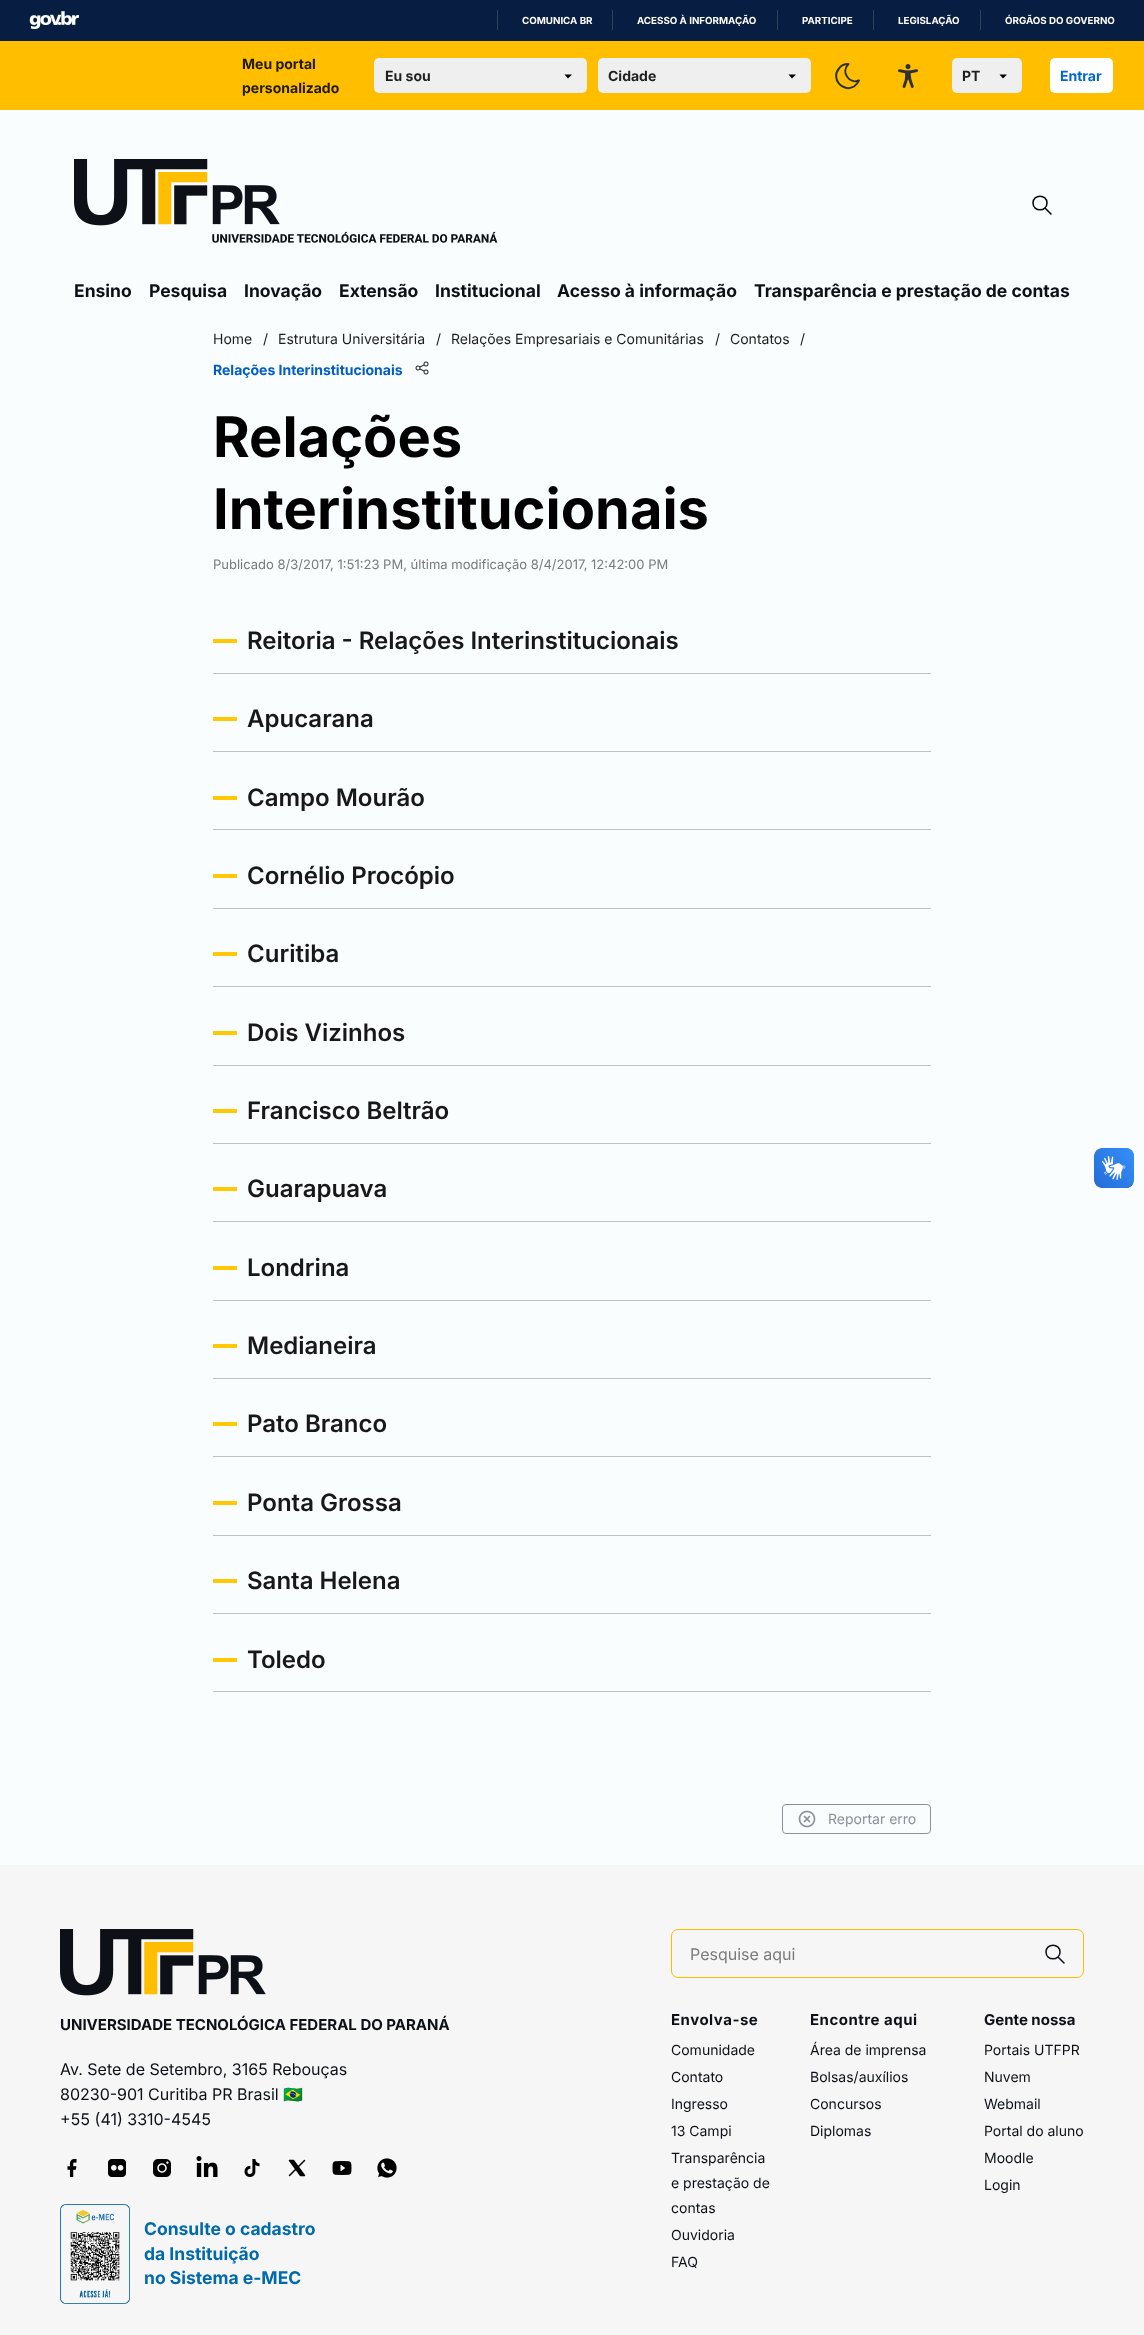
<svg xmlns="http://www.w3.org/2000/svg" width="1144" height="2335">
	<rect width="100%" height="100%" fill="#FAFDFD" />
	<rect x="0" y="0" width="1144" height="41" fill="#071D41" />
	<image x="29" y="11" width="50" height="18" href="assets/img1.png" />
	<rect x="497" y="10" width="1" height="20" fill="#32425B" />
	<text x="522" y="24" font-family="Inter" font-size="9.75" font-weight="700" fill="#FFFFFF">COMUNICA BR</text>
	<rect x="612" y="10" width="1" height="20" fill="#32425B" />
	<text x="637" y="24" font-family="Inter" font-size="9.75" font-weight="700" fill="#FFFFFF">ACESSO À INFORMAÇÃO</text>
	<rect x="777" y="10" width="1" height="20" fill="#32425B" />
	<text x="802" y="24" font-family="Inter" font-size="9.75" font-weight="700" fill="#FFFFFF">PARTICIPE</text>
	<rect x="873" y="10" width="1" height="20" fill="#32425B" />
	<text x="898" y="24" font-family="Inter" font-size="9.75" font-weight="700" fill="#FFFFFF">LEGISLAÇÃO</text>
	<rect x="980" y="10" width="1" height="20" fill="#32425B" />
	<text x="1005" y="24" font-family="Inter" font-size="9.75" font-weight="700" fill="#FFFFFF">ÓRGÃOS DO GOVERNO</text>
	<rect x="0" y="41" width="1144" height="69" fill="#FFBE00" />
	<g font-family="Inter" font-size="14" font-weight="700" fill="#211900">
		<text x="242" y="69">Meu portal</text>
		<text x="242" y="93">personalizado</text>
	</g>
	<rect x="374" y="58" width="213" height="35" rx="5" fill="#EFEFEF" />
	<path d="M564.5 74.5L568 78.5L572 74.5" fill="#000000" />
	<text x="385" y="81" font-family="Inter" font-size="14" font-weight="700" fill="#1F1F1F">Eu sou</text>
	<rect x="598" y="58" width="213" height="35" rx="5" fill="#EFEFEF" />
	<path d="M788.5 74.5L792 78.5L796 74.5" fill="#000000" />
	<text x="608" y="81" font-family="Inter" font-size="14" font-weight="700" fill="#1F1F1F">Cidade</text>
	<path d="M848 64H848.5C840.5 71.5 849 84.5 859 80.5C858 83 856 85 854 86.5C842.5 93 830.5 78.5 839 68.5C841 65.5 844.5 64 848 64Z" fill="none" stroke="#2E3132" stroke-width="2" stroke-linecap="round" stroke-linejoin="round" />
	<image x="898" y="64" width="20" height="24" href="assets/img2.png" />
	<rect x="952" y="58" width="70" height="35" rx="5" fill="#EFEFEF" />
	<path d="M999.5 74.5L1003 78.5L1007 74.5" fill="#000000" />
	<text x="962" y="81" font-family="Inter" font-size="14" font-weight="700" fill="#1F1F1F">PT</text>
	<rect x="1050" y="58" width="63" height="35" rx="5" fill="#FFFFFF" />
	<text x="1060" y="81" font-family="Inter" font-size="14" font-weight="700" fill="#0169CD">Entrar</text>
	<image x="74" y="159" width="424" height="84" href="assets/img3.png" />
	<path d="M1051 214L1045 208M1033 203C1033 212 1047 212 1047 203C1047 194 1033 194 1033 203Z" fill="none" stroke="#000000" stroke-width="1.5" stroke-linecap="round" stroke-linejoin="round" />
	<g font-family="Inter" font-size="17.5" font-weight="700" fill="#0D1117">
		<text x="74" y="297">Ensino</text>
		<text x="149" y="297">Pesquisa</text>
		<text x="244" y="297">Inovação</text>
		<text x="339" y="297">Extensão</text>
		<text x="435" y="297">Institucional</text>
		<text x="557" y="297">Acesso à informação</text>
		<text x="754" y="297">Transparência e prestação de contas</text>
	</g>
	<g font-family="Inter" font-size="14" fill="#1F1F1F">
		<text x="213" y="344">Home</text>
		<text x="263" y="344">/</text>
		<text x="278" y="344">Estrutura Universitária</text>
		<text x="436" y="344">/</text>
		<text x="451" y="344">Relações Empresariais e Comunitárias</text>
		<text x="715" y="344">/</text>
		<text x="730" y="344">Contatos</text>
		<text x="800" y="344">/</text>
	</g>
	<text x="213" y="375" font-family="Inter" font-size="14" font-weight="700" fill="#005DC5">Relações Interinstitucionais</text>
	<image x="415" y="361" width="14" height="14" href="assets/img4.png" />
	<g font-family="Inter" font-size="56" font-weight="700" fill="#000000">
		<text x="213" y="457">Relações</text>
		<text x="213" y="529">Interinstitucionais</text>
	</g>
	<text x="213" y="569" font-family="Inter" font-size="13" fill="#7A7A7A">Publicado 8/3/2017, 1:51:23 PM, última modificação 8/4/2017, 12:42:00 PM</text>
	<rect x="213" y="639" width="24" height="4" fill="#FFC800" />
	<text x="247" y="649" font-family="Inter" font-size="24" font-weight="600" fill="#18181A">Reitoria - Relações Interinstitucionais</text>
	<rect x="213" y="673" width="718" height="1" fill="#C1C1C1" />
	<rect x="213" y="717" width="24" height="4" fill="#FFC800" />
	<text x="247" y="727" font-family="Inter" font-size="24" font-weight="600" fill="#18181A">Apucarana</text>
	<rect x="213" y="751" width="718" height="1" fill="#C1C1C1" />
	<rect x="213" y="796" width="24" height="4" fill="#FFC800" />
	<text x="247" y="806" font-family="Inter" font-size="24" font-weight="600" fill="#18181A">Campo Mourão</text>
	<rect x="213" y="829" width="718" height="1" fill="#C1C1C1" />
	<rect x="213" y="874" width="24" height="4" fill="#FFC800" />
	<text x="247" y="884" font-family="Inter" font-size="24" font-weight="600" fill="#18181A">Cornélio Procópio</text>
	<rect x="213" y="908" width="718" height="1" fill="#C1C1C1" />
	<rect x="213" y="952" width="24" height="4" fill="#FFC800" />
	<text x="247" y="962" font-family="Inter" font-size="24" font-weight="600" fill="#18181A">Curitiba</text>
	<rect x="213" y="986" width="718" height="1" fill="#C1C1C1" />
	<rect x="213" y="1031" width="24" height="4" fill="#FFC800" />
	<text x="247" y="1041" font-family="Inter" font-size="24" font-weight="600" fill="#18181A">Dois Vizinhos</text>
	<rect x="213" y="1065" width="718" height="1" fill="#C1C1C1" />
	<rect x="213" y="1109" width="24" height="4" fill="#FFC800" />
	<text x="247" y="1119" font-family="Inter" font-size="24" font-weight="600" fill="#18181A">Francisco Beltrão</text>
	<rect x="213" y="1143" width="718" height="1" fill="#C1C1C1" />
	<rect x="213" y="1187" width="24" height="4" fill="#FFC800" />
	<text x="247" y="1197" font-family="Inter" font-size="24" font-weight="600" fill="#18181A">Guarapuava</text>
	<rect x="213" y="1221" width="718" height="1" fill="#C1C1C1" />
	<rect x="213" y="1266" width="24" height="4" fill="#FFC800" />
	<text x="247" y="1276" font-family="Inter" font-size="24" font-weight="600" fill="#18181A">Londrina</text>
	<rect x="213" y="1300" width="718" height="1" fill="#C1C1C1" />
	<rect x="213" y="1344" width="24" height="4" fill="#FFC800" />
	<text x="247" y="1354" font-family="Inter" font-size="24" font-weight="600" fill="#18181A">Medianeira</text>
	<rect x="213" y="1378" width="718" height="1" fill="#C1C1C1" />
	<rect x="213" y="1422" width="24" height="4" fill="#FFC800" />
	<text x="247" y="1432" font-family="Inter" font-size="24" font-weight="600" fill="#18181A">Pato Branco</text>
	<rect x="213" y="1456" width="718" height="1" fill="#C1C1C1" />
	<rect x="213" y="1501" width="24" height="4" fill="#FFC800" />
	<text x="247" y="1511" font-family="Inter" font-size="24" font-weight="600" fill="#18181A">Ponta Grossa</text>
	<rect x="213" y="1535" width="718" height="1" fill="#C1C1C1" />
	<rect x="213" y="1579" width="24" height="4" fill="#FFC800" />
	<text x="247" y="1589" font-family="Inter" font-size="24" font-weight="600" fill="#18181A">Santa Helena</text>
	<rect x="213" y="1613" width="718" height="1" fill="#C1C1C1" />
	<rect x="213" y="1658" width="24" height="4" fill="#FFC800" />
	<text x="247" y="1668" font-family="Inter" font-size="24" font-weight="600" fill="#18181A">Toledo</text>
	<rect x="213" y="1691" width="718" height="1" fill="#C1C1C1" />
	<rect x="782.5" y="1804.5" width="148" height="29" rx="3.5" fill="none" stroke="#8D9199" />
	<image x="798" y="1810" width="18" height="18" href="assets/img5.png" />
	<text x="828" y="1824" font-family="Inter" font-size="14" fill="#8D9199">Reportar erro</text>
	<rect x="0" y="1865" width="1144" height="470" fill="#F6F6F6" />
	<image x="60" y="1929" width="206" height="67" href="assets/img6.png" />
	<text x="60" y="2030" font-family="Inter" font-size="15" font-weight="700" fill="#0D1117">UNIVERSIDADE TECNOLÓGICA FEDERAL DO PARANÁ</text>
	<g font-family="Inter" font-size="16" fill="#0D1117">
		<text x="60" y="2075">Av. Sete de Setembro, 3165 Rebouças</text>
		<text x="60" y="2100">80230-901 Curitiba PR Brasil</text>
	</g>
	<text x="283" y="2100" font-family="Noto Color Emoji" font-size="16" fill="#0D1117">🇧🇷</text>
	<text x="60" y="2125" font-family="Inter" font-size="16" fill="#0D1117">+55 (41) 3310-4545</text>
	<image x="67" y="2159" width="10" height="18" href="assets/img7.png" />
	<image x="108" y="2159" width="18" height="18" href="assets/img8.png" />
	<image x="153" y="2159" width="18" height="18" href="assets/img9.png" />
	<image x="196" y="2156" width="22" height="21" href="assets/img10.png" />
	<image x="244" y="2159" width="16" height="18" href="assets/img11.png" />
	<image x="288" y="2159" width="18" height="18" href="assets/img12.png" />
	<image x="332" y="2161" width="20" height="14" href="assets/img13.png" />
	<image x="377" y="2158" width="20" height="20" href="assets/img14.png" />
	<image x="60" y="2204" width="70" height="100" href="assets/img15.png" />
	<g font-family="Inter" font-size="17.5" font-weight="700" fill="#016AAB">
		<text x="144" y="2235">Consulte o cadastro</text>
		<text x="144" y="2260">da Instituição</text>
		<text x="144" y="2284">no Sistema e-MEC</text>
	</g>
	<rect x="671.5" y="1929.5" width="412" height="48" rx="6.5" fill="none" stroke="#FCBC00" />
	<text x="690" y="1960" font-family="Inter" font-size="16" fill="#7A7A7A">Pesquise aqui</text>
	<path d="M1064 1963L1058 1957M1046 1952C1046 1961 1060 1961 1060 1952C1060 1943 1046 1943 1046 1952Z" fill="none" stroke="#0D1117" stroke-width="1.5" stroke-linecap="round" stroke-linejoin="round" />
	<text x="671" y="2025" font-family="Inter" font-size="15" font-weight="700" letter-spacing="0.5" fill="#0D1117">Envolva-se</text>
	<g font-family="Inter" font-size="14" fill="#0D1117">
		<text x="671" y="2055">Comunidade</text>
		<text x="671" y="2082">Contato</text>
		<text x="671" y="2109">Ingresso</text>
		<text x="671" y="2136">13 Campi</text>
		<text x="671" y="2163">Transparência</text>
		<text x="671" y="2188">e prestação de</text>
		<text x="671" y="2213">contas</text>
		<text x="671" y="2240">Ouvidoria</text>
		<text x="671" y="2267">FAQ</text>
	</g>
	<text x="810" y="2025" font-family="Inter" font-size="15" font-weight="700" letter-spacing="0.5" fill="#0D1117">Encontre aqui</text>
	<g font-family="Inter" font-size="14" fill="#0D1117">
		<text x="810" y="2055">Área de imprensa</text>
		<text x="810" y="2082">Bolsas/auxílios</text>
		<text x="810" y="2109">Concursos</text>
		<text x="810" y="2136">Diplomas</text>
	</g>
	<text x="984" y="2025" font-family="Inter" font-size="15" font-weight="700" fill="#0D1117">Gente nossa</text>
	<g font-family="Inter" font-size="14" fill="#0D1117">
		<text x="984" y="2055">Portais UTFPR</text>
		<text x="984" y="2082">Nuvem</text>
		<text x="984" y="2109">Webmail</text>
		<text x="984" y="2136">Portal do aluno</text>
		<text x="984" y="2163">Moodle</text>
		<text x="984" y="2190">Login</text>
	</g>
	<image x="1094" y="1148" width="40" height="40" href="assets/img16.png" />
	<image x="1094" y="1148" width="40" height="40" href="assets/img17.png" />
</svg>
